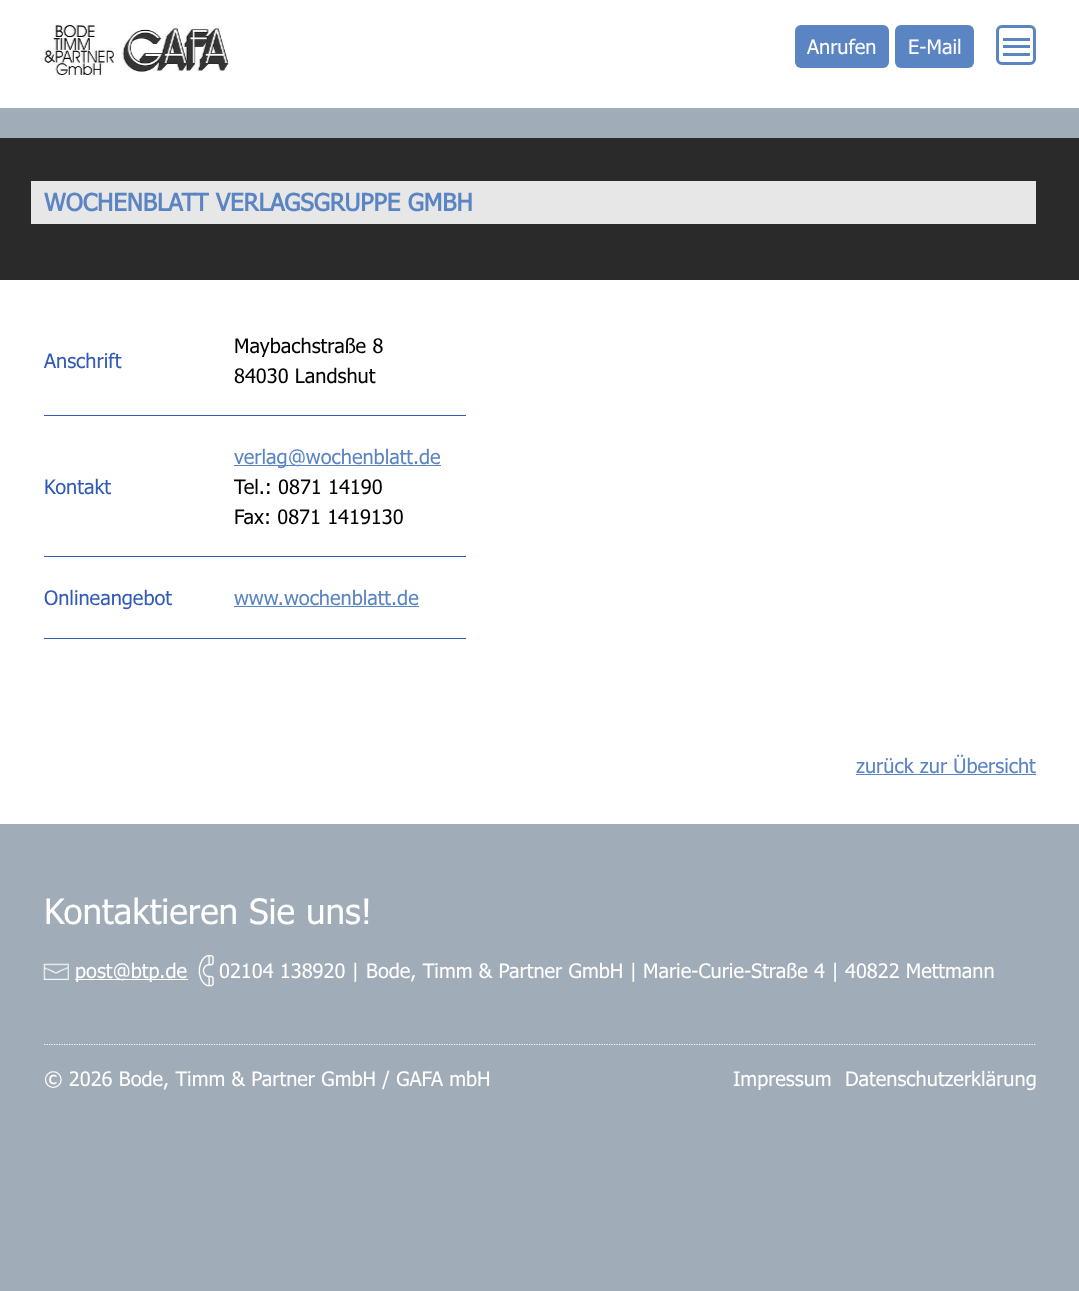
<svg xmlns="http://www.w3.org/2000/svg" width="1079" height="1291">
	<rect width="100%" height="100%" fill="#A0ACB7" />
	<rect x="0" y="0" width="1079" height="108" fill="#FFFFFF" />
	<image x="44" y="25" width="70" height="50" href="assets/img1.png" />
	<image x="121" y="25" width="109" height="48" href="assets/img2.png" />
	<rect x="795" y="25" width="94" height="43" rx="6" fill="#5B84C3" />
	<text x="807" y="54" font-family="Tahoma" font-size="20" fill="#FFFFFF">Anrufen</text>
	<rect x="895" y="25" width="79" height="43" rx="6" fill="#5B84C3" />
	<text x="908" y="54" font-family="Tahoma" font-size="20" fill="#FFFFFF">E-Mail</text>
	<rect x="997.5" y="26.5" width="37" height="37" rx="4.5" fill="none" stroke="#5B84C3" stroke-width="3" />
	<rect x="1003" y="38" width="27" height="3" fill="#5B84C3" />
	<rect x="1003" y="45" width="27" height="3" fill="#5B84C3" />
	<rect x="1003" y="53" width="27" height="3" fill="#5B84C3" />
	<rect x="0" y="138" width="1079" height="142" fill="#2A2A2A" />
	<rect x="31" y="181" width="1005" height="43" fill="#E7E7E7" />
	<text x="44" y="211" font-family="Tahoma" font-size="24" font-weight="700" fill="#5B84C3">WOCHENBLATT VERLAGSGRUPPE GMBH</text>
	<rect x="0" y="280" width="1079" height="544" fill="#FFFFFF" />
	<text x="44" y="368" font-family="Tahoma" font-size="20" fill="#315BB5">Anschrift</text>
	<rect x="44" y="415" width="422" height="1" fill="#315BB5" />
	<g font-family="Tahoma" font-size="20" fill="#000000">
		<text x="234" y="353">Maybachstraße 8</text>
		<text x="234" y="383">84030 Landshut</text>
	</g>
	<text x="44" y="494" font-family="Tahoma" font-size="20" fill="#315BB5">Kontakt</text>
	<rect x="44" y="556" width="422" height="1" fill="#315BB5" />
	<rect x="234" y="465" width="207" height="1" fill="#5B84C3" />
	<text x="234" y="464" font-family="Tahoma" font-size="20" fill="#5B84C3">verlag@wochenblatt.de</text>
	<g font-family="Tahoma" font-size="20" fill="#000000">
		<text x="234" y="494">Tel.: 0871 14190</text>
		<text x="234" y="524">Fax: 0871 1419130</text>
	</g>
	<text x="44" y="605" font-family="Tahoma" font-size="20" fill="#315BB5">Onlineangebot</text>
	<rect x="44" y="638" width="422" height="1" fill="#315BB5" />
	<text x="234" y="605" font-family="Tahoma" font-size="20" fill="#5B84C3">www.wochenblatt.de</text>
	<rect x="234" y="606" width="185" height="1" fill="#5B84C3" />
	<text x="856" y="773" font-family="Tahoma" font-size="20" fill="#5B84C3">zurück zur Übersicht</text>
	<rect x="856" y="774" width="180" height="1" fill="#5B84C3" />
	<text x="44" y="924" font-family="Tahoma" font-size="35" fill="#FFFFFF">Kontaktieren Sie uns!</text>
	<image x="43" y="963" width="26" height="17" href="assets/img3.png" />
	<rect x="75" y="979" width="113" height="1" fill="#FFFFFF" />
	<text x="75" y="978" font-family="Tahoma" font-size="20" fill="#FFFFFF">post@btp.de</text>
	<image x="198" y="955" width="16" height="32" href="assets/img4.png" />
	<g font-family="Tahoma" font-size="20" fill="#FFFFFF">
		<text x="219" y="978">02104 138920 |</text>
		<text x="366" y="978">Bode, Timm &amp; Partner GmbH |</text>
		<text x="643" y="978">Marie-Curie-Straße 4 |</text>
		<text x="845" y="978">40822 Mettmann</text>
	</g>
	<path d="M44 1044.5H1036" fill="none" stroke="#FFFFFF" stroke-width="1.2" stroke-dasharray="1.25 1.25" />
	<g font-family="Tahoma" font-size="20" fill="#FFFFFF">
		<text x="44" y="1086">© 2026 Bode, Timm &amp; Partner GmbH / GAFA mbH</text>
		<text x="733" y="1086">Impressum</text>
		<text x="845" y="1086">Datenschutzerklärung</text>
	</g>
</svg>
